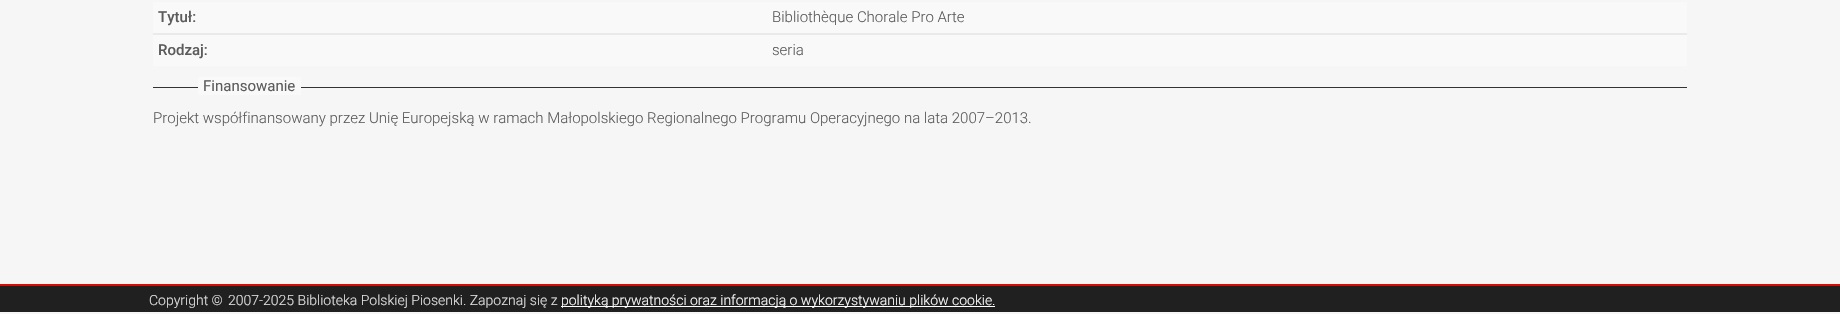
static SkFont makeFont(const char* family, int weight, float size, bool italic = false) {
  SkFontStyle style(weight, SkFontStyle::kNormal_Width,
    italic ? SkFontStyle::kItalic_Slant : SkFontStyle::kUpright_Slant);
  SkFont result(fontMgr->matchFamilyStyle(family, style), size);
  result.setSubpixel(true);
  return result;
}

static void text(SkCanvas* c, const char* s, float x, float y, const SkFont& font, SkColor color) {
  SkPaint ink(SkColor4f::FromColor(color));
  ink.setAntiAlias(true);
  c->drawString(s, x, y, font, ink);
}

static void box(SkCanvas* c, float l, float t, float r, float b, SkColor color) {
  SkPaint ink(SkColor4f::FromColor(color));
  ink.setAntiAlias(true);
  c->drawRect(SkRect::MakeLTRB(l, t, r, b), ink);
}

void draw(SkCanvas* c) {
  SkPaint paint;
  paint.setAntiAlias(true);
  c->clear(0xfff6f6f6);
  box(c, 153, 2, 1687, 33, 0xfff9f9f9);
  SkFont face1 = makeFont("Roboto", 500, 15);
  text(c, "Tytuł:", 158, 22, face1, 0xff5c5c5c);
  SkFont face2 = makeFont("Roboto", 300, 15);
  text(c, "Bibliothèque Chorale Pro Arte", 772, 22, face2, 0xff5c5c5c);
  box(c, 153, 35, 1687, 66, 0xfff9f9f9);
  box(c, 153, 33, 1687, 35, 0xffeaeaea);
  text(c, "Rodzaj:", 158, 55, face1, 0xff5c5c5c);
  text(c, "seria", 772, 55, face2, 0xff5c5c5c);
  box(c, 153, 87, 1687, 88, 0xff333333);
  box(c, 198, 77, 301, 95, 0xfff9f9f9);
  SkFont face3 = makeFont("Roboto", 400, 15);
  text(c, "Finansowanie", 203, 91, face3, 0xff5c5c5c);
  text(c, "Projekt współfinansowany przez Unię Europejską w ramach Małopolskiego Regionalnego Programu Operacyjnego na lata 2007–2013.", 153, 123, face2, 0xff5c5c5c);
  box(c, 0, 286, 1840, 312, 0xff202020);
  box(c, 0, 284, 1840, 286, 0xffd60c07);
  SkFont face4 = makeFont("Roboto", 300, 14);
  text(c, "Copyright ©", 149, 305, face4, 0xffe0e0e0);
  text(c, "2007-2025 Biblioteka Polskiej Piosenki. Zapoznaj się z", 228, 305, face4, 0xffe0e0e0);
  box(c, 561, 306, 995, 307, 0xffffffff);
  text(c, "polityką prywatności oraz informacją o wykorzystywaniu plików cookie.", 561, 305, face4, 0xffffffff);
}
